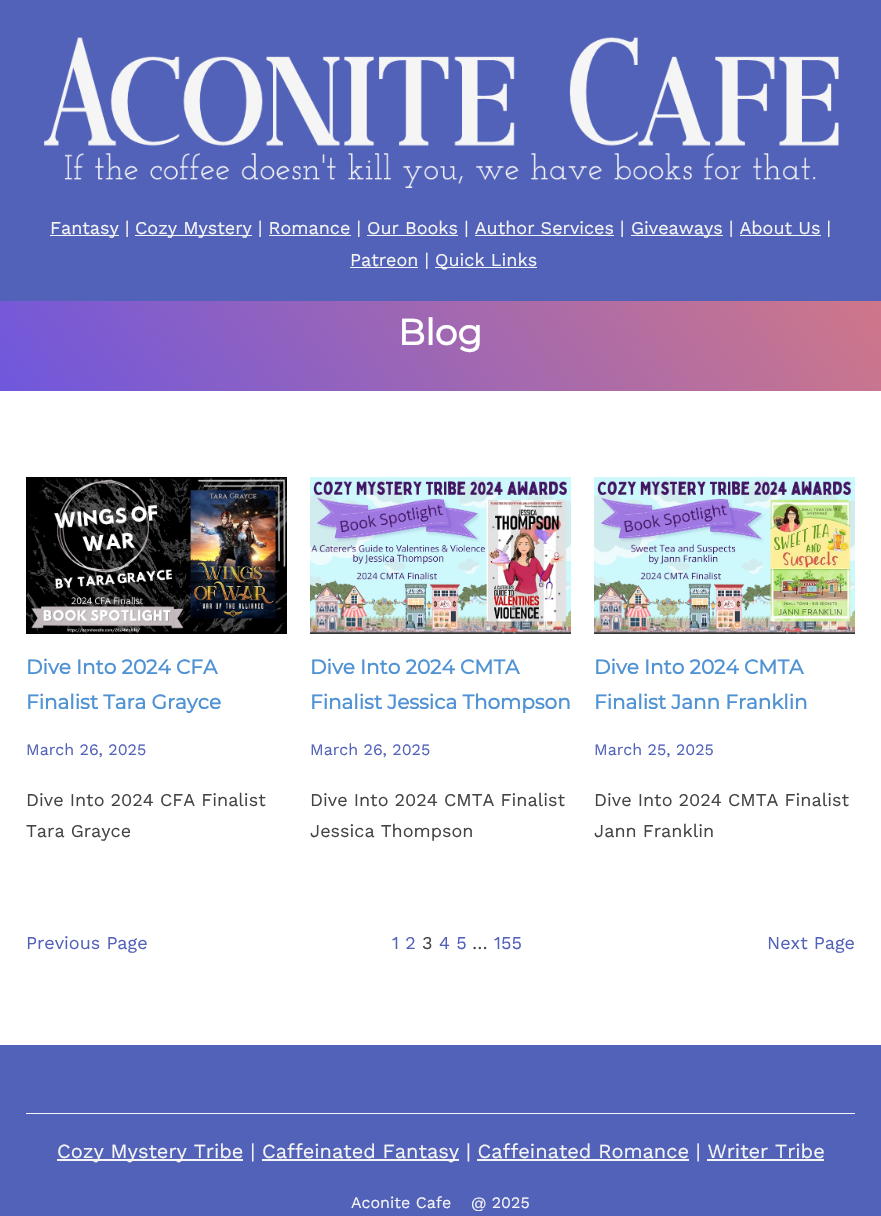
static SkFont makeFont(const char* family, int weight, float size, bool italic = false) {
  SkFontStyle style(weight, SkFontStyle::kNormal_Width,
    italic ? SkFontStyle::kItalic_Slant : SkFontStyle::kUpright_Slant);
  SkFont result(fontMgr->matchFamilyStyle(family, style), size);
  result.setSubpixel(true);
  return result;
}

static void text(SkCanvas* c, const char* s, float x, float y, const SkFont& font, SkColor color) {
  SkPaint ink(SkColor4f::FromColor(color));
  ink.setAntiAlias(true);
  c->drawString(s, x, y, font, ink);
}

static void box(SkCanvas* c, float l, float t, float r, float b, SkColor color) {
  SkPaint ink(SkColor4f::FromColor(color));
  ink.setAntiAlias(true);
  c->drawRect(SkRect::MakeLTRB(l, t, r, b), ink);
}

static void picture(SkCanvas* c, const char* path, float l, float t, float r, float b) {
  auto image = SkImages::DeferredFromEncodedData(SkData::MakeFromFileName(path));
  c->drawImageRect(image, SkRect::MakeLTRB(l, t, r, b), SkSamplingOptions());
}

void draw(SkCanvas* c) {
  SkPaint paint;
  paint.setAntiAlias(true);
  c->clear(0xff5262b9);
  picture(c, "img_01.png", 44, 37, 839, 189);
  box(c, 50, 235, 119, 236, 0xfff5f5f5);
  SkFont face1 = makeFont("Work Sans", 400, 18);
  text(c, "Fantasy |", 50, 234, face1, 0xfff5f5f5);
  box(c, 135, 235, 252, 236, 0xfff5f5f5);
  text(c, "Cozy Mystery | Romance | Our Books | Author Services |", 135, 234, face1, 0xfff5f5f5);
  box(c, 631, 235, 723, 236, 0xfff5f5f5);
  text(c, "Giveaways | About Us |", 631, 234, face1, 0xfff5f5f5);
  box(c, 269, 235, 351, 236, 0xfff5f5f5);
  box(c, 367, 235, 458, 236, 0xfff5f5f5);
  box(c, 475, 235, 614, 236, 0xfff5f5f5);
  box(c, 740, 235, 821, 236, 0xfff5f5f5);
  box(c, 350, 267, 418, 268, 0xfff5f5f5);
  text(c, "Patreon |", 350, 266, face1, 0xfff5f5f5);
  box(c, 435, 267, 537, 268, 0xfff5f5f5);
  text(c, "Quick Links", 435, 266, face1, 0xfff5f5f5);
  {
    const SkColor colors[] = {0xff6f57dd, 0xffcf7789};
    const float stops[] = {0, 1};
    const SkPoint ends[] = {{131, 571}, {750, 121}};
    paint.setShader(SkGradientShader::MakeLinear(ends, colors, stops, 2, SkTileMode::kClamp));
    paint.setAlpha(255);
  }
  c->drawRect(SkRect::MakeLTRB(0, 301, 881, 391), paint);
  SkFont face2 = makeFont("Montserrat", 700, 36);
  text(c, "Blog", 398, 345, face2, 0xffffffff);
  box(c, 0, 391, 881, 1045, 0xffffffff);
  picture(c, "img_02.png", 26, 477, 287, 634);
  SkFont face3 = makeFont("Montserrat", 700, 20);
  text(c, "Dive Into 2024 CFA", 26, 674, face3, 0xff5093d4);
  text(c, "Finalist Tara Grayce", 26, 709, face3, 0xff5093d4);
  SkFont face4 = makeFont("Work Sans", 400, 16);
  text(c, "March 26, 2025", 26, 755, face4, 0xff5262b9);
  text(c, "Dive Into 2024 CFA Finalist", 26, 806, face1, 0xff444444);
  text(c, "Tara Grayce", 26, 837, face1, 0xff444444);
  picture(c, "img_03.png", 310, 477, 571, 634);
  text(c, "Dive Into 2024 CMTA", 310, 674, face3, 0xff5093d4);
  text(c, "Finalist Jessica Thompson", 310, 709, face3, 0xff5093d4);
  text(c, "March 26, 2025", 310, 755, face4, 0xff5262b9);
  text(c, "Dive Into 2024 CMTA Finalist", 310, 806, face1, 0xff444444);
  text(c, "Jessica Thompson", 310, 837, face1, 0xff444444);
  picture(c, "img_04.png", 594, 477, 855, 634);
  text(c, "Dive Into 2024 CMTA", 594, 674, face3, 0xff5093d4);
  text(c, "Finalist Jann Franklin", 594, 709, face3, 0xff5093d4);
  text(c, "March 25, 2025", 594, 755, face4, 0xff5262b9);
  text(c, "Dive Into 2024 CMTA Finalist", 594, 806, face1, 0xff444444);
  text(c, "Jann Franklin", 594, 837, face1, 0xff444444);
  text(c, "Previous Page", 26, 949, face1, 0xff5262b9);
  text(c, "1 2", 392, 949, face1, 0xff5262b9);
  text(c, "3", 422, 949, face1, 0xff444444);
  text(c, "4 5", 439, 949, face1, 0xff5262b9);
  text(c, "…", 472, 949, face1, 0xff444444);
  text(c, "155", 494, 949, face1, 0xff5262b9);
  text(c, "Next Page", 767, 949, face1, 0xff5262b9);
  box(c, 26, 1113, 855, 1114, 0xfff5f5f5);
  box(c, 57, 1159, 243, 1161, 0xfff5f5f5);
  SkFont face5 = makeFont("Work Sans", 400, 20);
  text(c, "Cozy Mystery Tribe |", 57, 1158, face5, 0xfff5f5f5);
  box(c, 262, 1159, 459, 1161, 0xfff5f5f5);
  text(c, "Caffeinated Fantasy | Caffeinated Romance | Writer Tribe", 262, 1158, face5, 0xfff5f5f5);
  box(c, 477, 1159, 689, 1161, 0xfff5f5f5);
  box(c, 707, 1159, 824, 1161, 0xfff5f5f5);
  text(c, "Aconite Cafe", 351, 1208, face4, 0xfff5f5f5);
  text(c, "@ 2025", 471, 1208, face4, 0xfff5f5f5);
}
